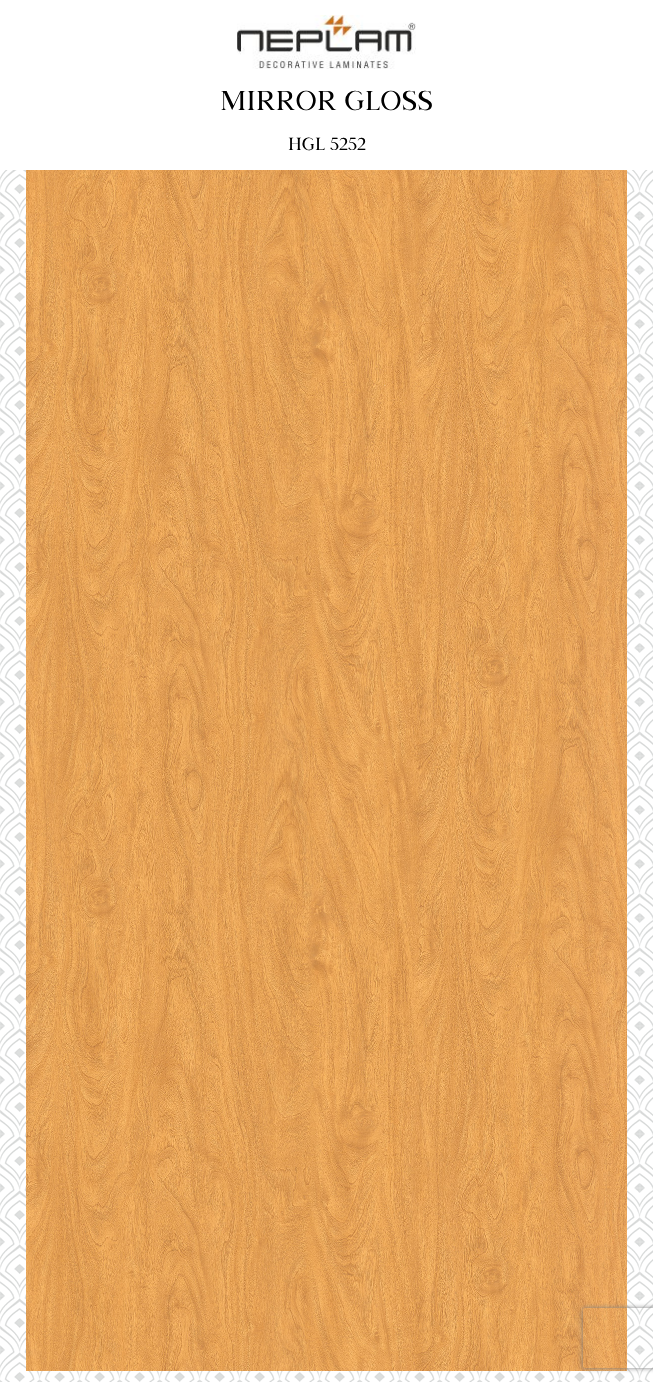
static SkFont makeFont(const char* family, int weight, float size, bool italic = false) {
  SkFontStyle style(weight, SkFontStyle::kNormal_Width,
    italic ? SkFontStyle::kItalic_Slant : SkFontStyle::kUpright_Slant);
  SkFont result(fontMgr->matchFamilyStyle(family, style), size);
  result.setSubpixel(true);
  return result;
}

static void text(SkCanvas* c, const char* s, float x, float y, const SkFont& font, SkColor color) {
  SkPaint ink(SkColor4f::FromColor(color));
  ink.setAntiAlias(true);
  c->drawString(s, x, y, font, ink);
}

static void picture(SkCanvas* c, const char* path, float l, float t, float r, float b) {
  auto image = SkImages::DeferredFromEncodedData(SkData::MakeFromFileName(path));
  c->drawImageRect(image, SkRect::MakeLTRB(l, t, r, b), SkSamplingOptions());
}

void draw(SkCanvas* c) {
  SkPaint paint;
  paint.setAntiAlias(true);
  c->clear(0xffffffff);
  picture(c, "img_01.png", 0, 170, 653, 1382);
  picture(c, "img_02.png", 237, 15, 416, 69);
  SkFont face1 = makeFont("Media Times", 400, 28);
  text(c, "MIRROR GLOSS", 220, 110, face1, 0xff000000);
  SkFont face2 = makeFont("Media Times", 400, 18);
  text(c, "HGL 5252", 288, 150, face2, 0xff000000);
  picture(c, "img_03.png", 26, 170, 627, 1371);
  c->save();
  c->clipPath(SkPathBuilder(SkPathFillType::kEvenOdd).moveTo(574, 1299).lineTo(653, 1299).lineTo(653, 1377).lineTo(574, 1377).close().moveTo(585, 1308).lineTo(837, 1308).cubicTo(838, 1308, 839, 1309, 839, 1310).lineTo(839, 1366).cubicTo(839, 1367, 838, 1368, 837, 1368).lineTo(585, 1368).cubicTo(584, 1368, 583, 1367, 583, 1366).lineTo(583, 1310).cubicTo(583, 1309, 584, 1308, 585, 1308).close().detach(), true);
  paint.setColor(0xff808080);
  paint.setMaskFilter(SkMaskFilter::MakeBlur(kNormal_SkBlurStyle, 2.5f));
  c->drawRoundRect(SkRect::MakeLTRB(583, 1308, 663, 1368), 2, 2, paint);
  paint.setMaskFilter(nullptr);
  c->restore();
}
